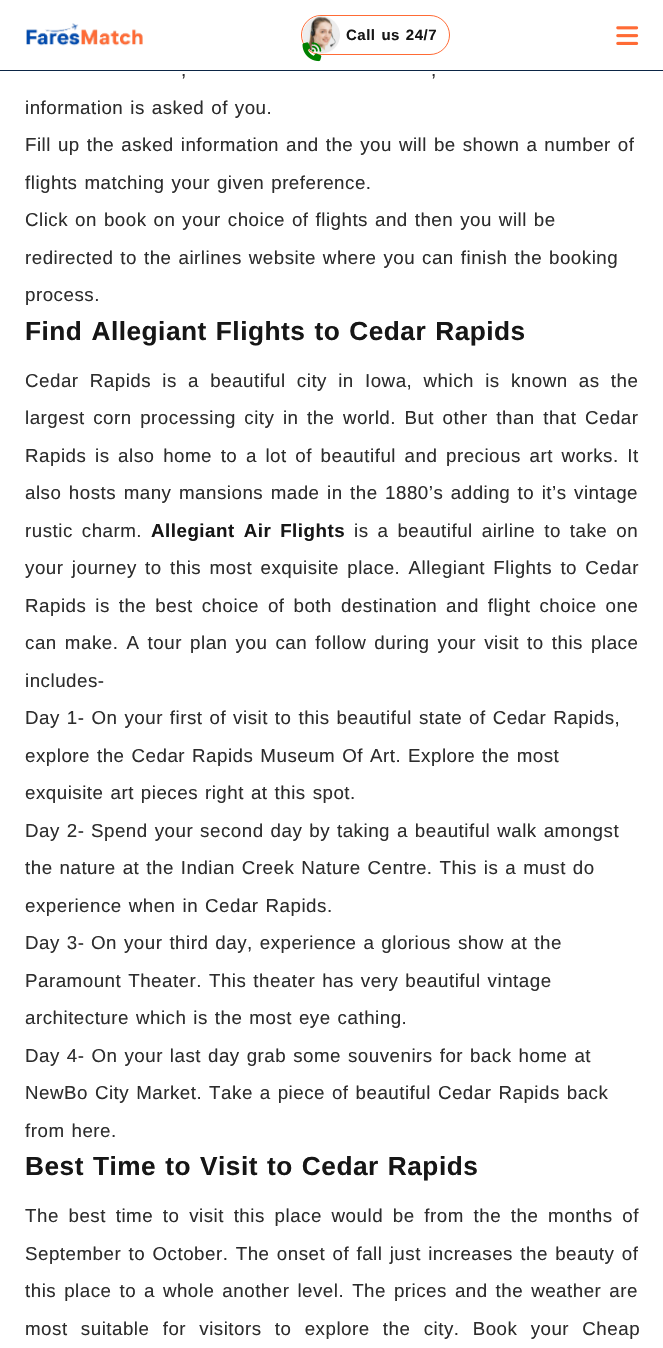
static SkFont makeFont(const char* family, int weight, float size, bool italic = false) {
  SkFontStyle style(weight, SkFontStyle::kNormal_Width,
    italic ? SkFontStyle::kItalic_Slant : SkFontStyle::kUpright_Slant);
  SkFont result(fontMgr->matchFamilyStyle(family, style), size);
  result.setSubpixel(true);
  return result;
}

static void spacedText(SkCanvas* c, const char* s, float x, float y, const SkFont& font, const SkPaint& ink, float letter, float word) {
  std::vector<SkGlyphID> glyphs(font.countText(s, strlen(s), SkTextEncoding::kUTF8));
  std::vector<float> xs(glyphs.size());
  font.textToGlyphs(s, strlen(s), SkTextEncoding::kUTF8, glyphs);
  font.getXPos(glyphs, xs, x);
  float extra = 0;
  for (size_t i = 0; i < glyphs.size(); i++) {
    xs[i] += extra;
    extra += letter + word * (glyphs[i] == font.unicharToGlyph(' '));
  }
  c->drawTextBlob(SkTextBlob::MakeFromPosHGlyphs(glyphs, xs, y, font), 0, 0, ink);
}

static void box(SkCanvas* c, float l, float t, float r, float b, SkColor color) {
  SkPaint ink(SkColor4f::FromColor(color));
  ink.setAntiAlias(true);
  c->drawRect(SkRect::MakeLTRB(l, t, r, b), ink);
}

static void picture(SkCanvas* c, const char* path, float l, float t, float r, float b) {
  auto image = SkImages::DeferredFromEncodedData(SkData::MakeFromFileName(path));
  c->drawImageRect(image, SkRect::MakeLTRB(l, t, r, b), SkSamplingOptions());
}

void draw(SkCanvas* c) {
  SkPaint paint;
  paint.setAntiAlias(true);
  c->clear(0xffffffff);
  box(c, 0, 70, 663, 71, 0xff0b2545);
  picture(c, "img_01.png", 26, 23, 143, 46);
  paint.setStyle(SkPaint::kStroke_Style);
  paint.setStrokeWidth(1);
  paint.setColor(0xffff6b35);
  c->drawRoundRect(SkRect::MakeLTRB(301.5f, 15.5f, 449.5f, 54.5f), 19.5f, 19.5f, paint);
  picture(c, "img_02.png", 302, 16, 340, 55);
  SkFont face1 = makeFont("Liberation Sans", 700, 15);
  paint.setStyle(SkPaint::kFill_Style);
  paint.setColor(0xff161616);
  spacedText(c, "Call us 24/7", 346, 40, face1, paint, 0.5f, 1.25f);
  picture(c, "img_03.png", 302, 42, 322, 62);
  picture(c, "img_04.png", 616, 26, 639, 45);
  SkFont face2 = makeFont("Liberation Sans", 400, 18.75f);
  paint.setColor(0xff2d2d2d);
  spacedText(c, ",", 181, 76, face2, paint, 0.5f, 1.25f);
  spacedText(c, ",", 431, 76, face2, paint, 0.5f, 1.25f);
  spacedText(c, "information is asked of you.", 25, 114, face2, paint, 0.5f, 1.25f);
  spacedText(c, "Fill up the asked information and the you will be shown a number of", 25, 151, face2, paint, 0.5f, 1.25f);
  spacedText(c, "flights matching your given preference.", 25, 189, face2, paint, 0.5f, 1.25f);
  spacedText(c, "Click on book on your choice of flights and then you will be", 25, 226, face2, paint, 0.5f, 1.25f);
  spacedText(c, "redirected to the airlines website where you can finish the booking", 25, 264, face2, paint, 0.5f, 1.25f);
  spacedText(c, "process.", 25, 301, face2, paint, 0.5f, 0);
  SkFont face3 = makeFont("Liberation Sans", 700, 26.25f);
  paint.setColor(0xff161616);
  spacedText(c, "Find Allegiant Flights to Cedar Rapids", 25, 340, face3, paint, 0.5f, 1.25f);
  paint.setColor(0xff2d2d2d);
  spacedText(c, "Cedar Rapids is a beautiful city in Iowa, which is known as the", 25, 387, face2, paint, 0.5f, 5.5f);
  spacedText(c, "largest corn processing city in the world. But other than that Cedar", 25, 424, face2, paint, 0.5f, 2.75f);
  spacedText(c, "Rapids is also home to a lot of beautiful and precious art works. It", 25, 462, face2, paint, 0.5f, 2.9f);
  spacedText(c, "also hosts many mansions made in the 1880’s adding to it’s vintage", 25, 499, face2, paint, 0.5f, 1.75f);
  spacedText(c, "rustic charm.", 25, 537, face2, paint, 0.5f, 3.25f);
  SkFont face4 = makeFont("Liberation Sans", 700, 18.75f);
  paint.setColor(0xff161616);
  spacedText(c, "Allegiant Air Flights", 151, 537, face4, paint, 0.5f, 3.25f);
  paint.setColor(0xff2d2d2d);
  spacedText(c, "is a beautiful airline to take on", 354, 537, face2, paint, 0.5f, 3.25f);
  spacedText(c, "your journey to this most exquisite place. Allegiant Flights to Cedar", 25, 574, face2, paint, 0.5f, 2.6f);
  spacedText(c, "Rapids is the best choice of both destination and flight choice one", 25, 612, face2, paint, 0.5f, 3.25f);
  spacedText(c, "can make. A tour plan you can follow during your visit to this place", 25, 649, face2, paint, 0.5f, 2.4f);
  spacedText(c, "includes-", 25, 687, face2, paint, 0.5f, 0);
  spacedText(c, "Day 1- On your first of visit to this beautiful state of Cedar Rapids,", 25, 724, face2, paint, 0.5f, 1.25f);
  spacedText(c, "explore the Cedar Rapids Museum Of Art. Explore the most", 25, 762, face2, paint, 0.5f, 1.25f);
  spacedText(c, "exquisite art pieces right at this spot.", 25, 799, face2, paint, 0.5f, 1.25f);
  spacedText(c, "Day 2-", 25, 837, face2, paint, 0.5f, 1.25f);
  spacedText(c, "Spend your second day by taking a beautiful walk amongst", 91, 837, face2, paint, 0.5f, 1.25f);
  spacedText(c, "the nature at the Indian Creek Nature Centre. This is a must do", 25, 874, face2, paint, 0.5f, 1.25f);
  spacedText(c, "experience when in Cedar Rapids.", 25, 912, face2, paint, 0.5f, 1.25f);
  spacedText(c, "Day 3-", 25, 949, face2, paint, 0.5f, 1.25f);
  spacedText(c, "On your third day, experience a glorious show at the", 91, 949, face2, paint, 0.5f, 1.25f);
  spacedText(c, "Paramount Theater. This theater has very beautiful vintage", 25, 987, face2, paint, 0.5f, 1.25f);
  spacedText(c, "architecture which is the most eye cathing.", 25, 1024, face2, paint, 0.5f, 1.25f);
  spacedText(c, "Day 4- On your last day grab some souvenirs for back home at", 25, 1062, face2, paint, 0.5f, 1.25f);
  spacedText(c, "NewBo City Market. Take a piece of beautiful Cedar Rapids back", 25, 1099, face2, paint, 0.5f, 1.25f);
  spacedText(c, "from here.", 25, 1137, face2, paint, 0.5f, 1.25f);
  paint.setColor(0xff161616);
  spacedText(c, "Best Time to Visit to Cedar Rapids", 25, 1175, face3, paint, 0.5f, 1.25f);
  paint.setColor(0xff2d2d2d);
  spacedText(c, "The best time to visit this place would be from the the months of", 25, 1222, face2, paint, 0.5f, 4);
  spacedText(c, "September to October. The onset of fall just increases the beauty of", 25, 1260, face2, paint, 0.5f, 1.6f);
  spacedText(c, "this place to a whole another level. The prices and the weather are", 25, 1297, face2, paint, 0.5f, 2.25f);
  spacedText(c, "most suitable for visitors to explore the city. Book your Cheap", 25, 1335, face2, paint, 0.5f, 7.5f);
}
